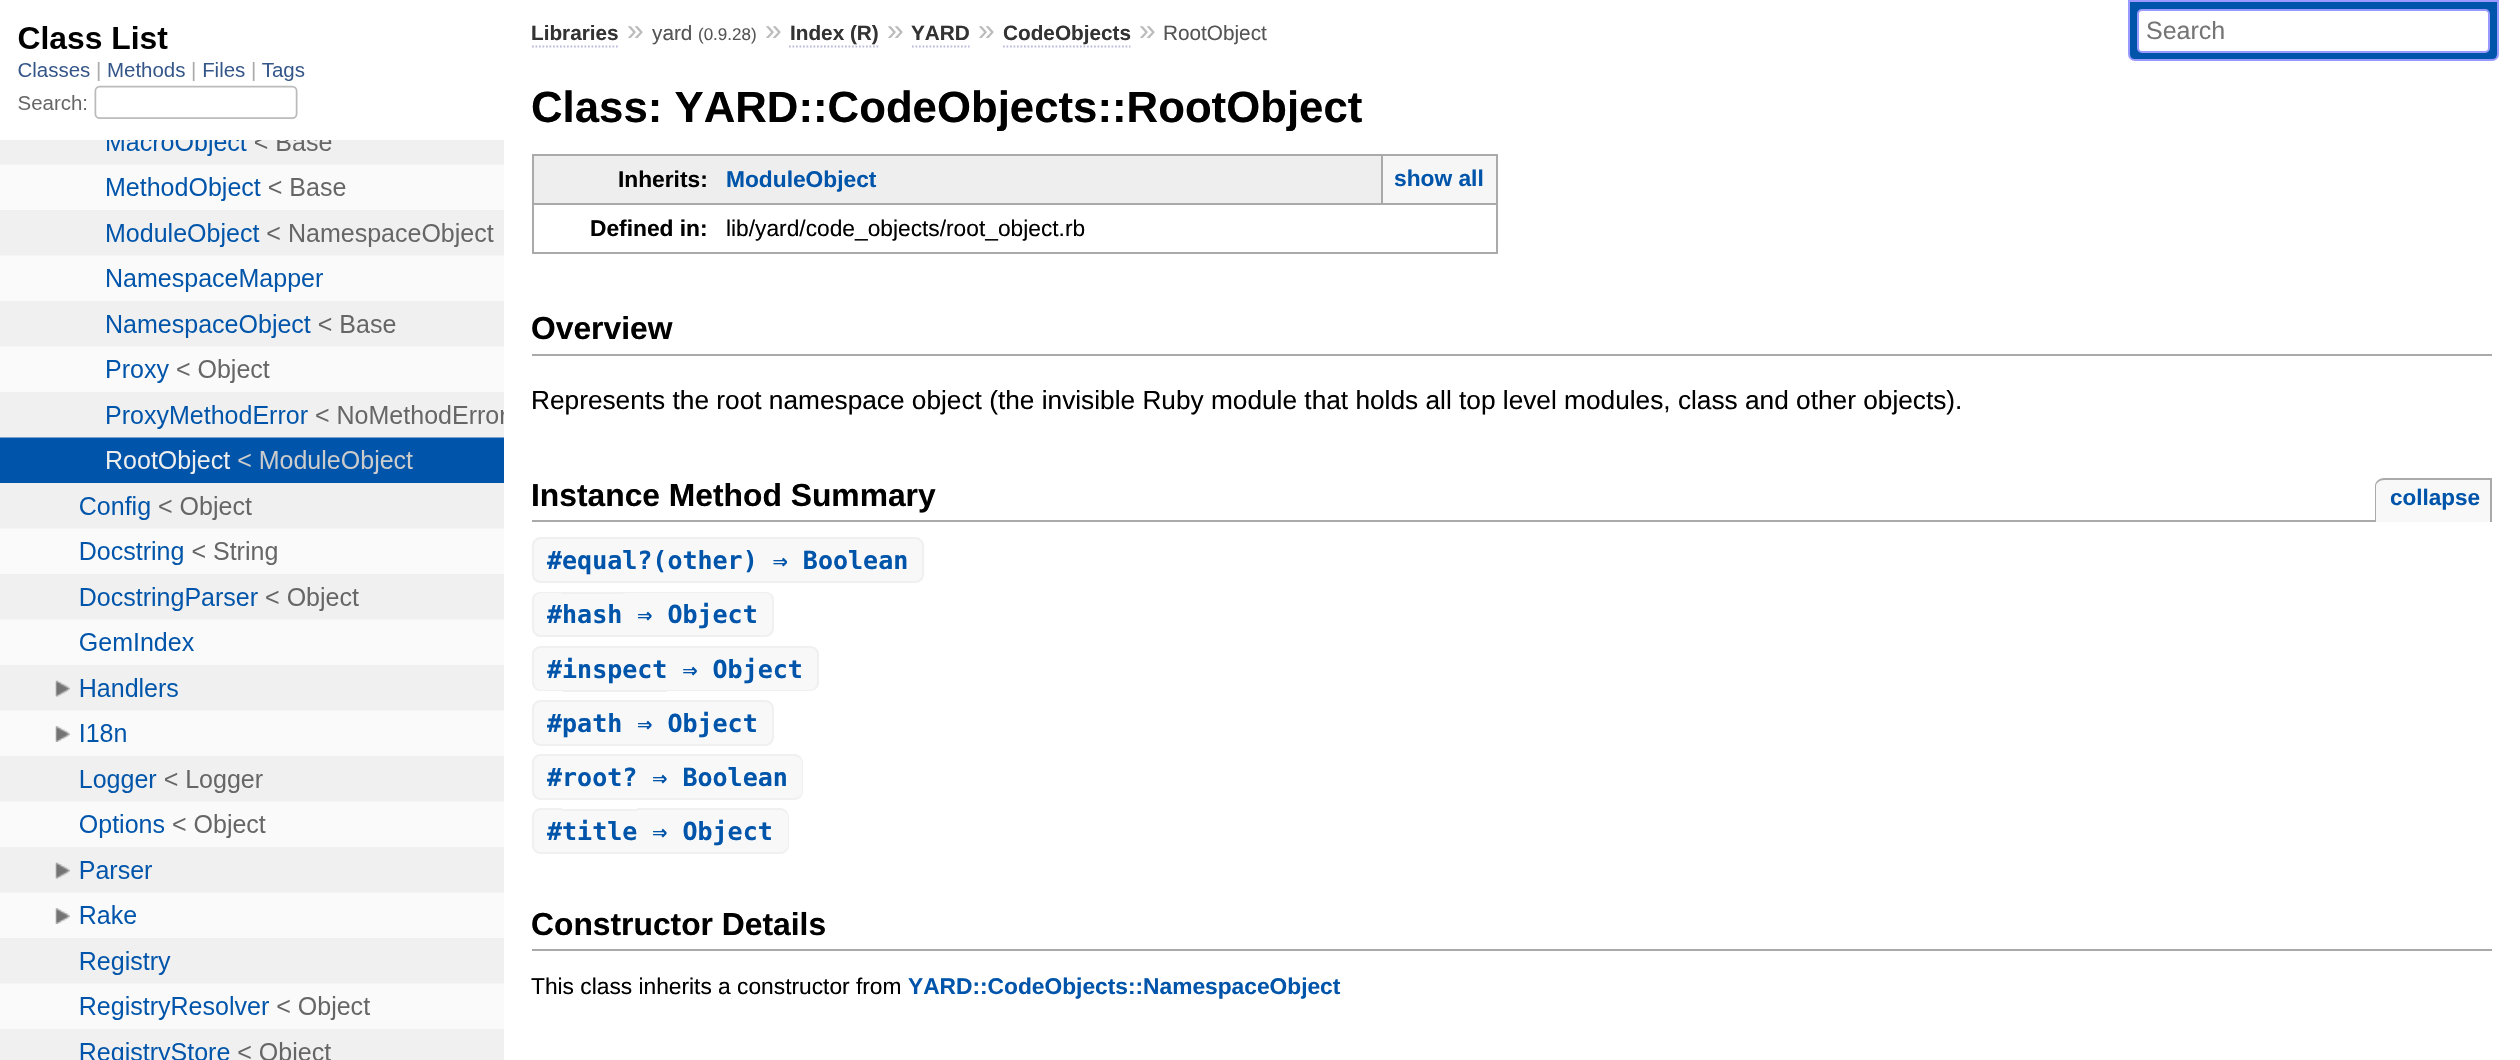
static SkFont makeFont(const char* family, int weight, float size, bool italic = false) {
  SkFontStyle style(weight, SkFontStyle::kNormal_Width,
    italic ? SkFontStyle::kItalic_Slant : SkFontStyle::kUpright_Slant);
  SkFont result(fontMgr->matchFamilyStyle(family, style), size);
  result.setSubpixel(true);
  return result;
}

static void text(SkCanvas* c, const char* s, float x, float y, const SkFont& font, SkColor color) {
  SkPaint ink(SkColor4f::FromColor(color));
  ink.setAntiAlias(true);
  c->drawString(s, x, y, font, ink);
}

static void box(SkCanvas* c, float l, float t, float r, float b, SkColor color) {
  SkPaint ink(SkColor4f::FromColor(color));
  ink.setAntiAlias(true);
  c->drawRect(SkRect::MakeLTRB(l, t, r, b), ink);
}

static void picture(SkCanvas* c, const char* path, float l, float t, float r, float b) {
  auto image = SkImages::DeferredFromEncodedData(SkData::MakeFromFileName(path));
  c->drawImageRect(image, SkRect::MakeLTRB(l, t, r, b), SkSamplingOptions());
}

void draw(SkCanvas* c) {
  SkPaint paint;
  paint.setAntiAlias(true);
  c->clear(0xffffffff);
  picture(c, "img_01.png", 0, 26, 504, 1060);
  SkFont face1 = makeFont("Liberation Sans", 700, 20.75f);
  text(c, "Libraries", 531, 40, face1, 0xff333333);
  paint.setStyle(SkPaint::kStroke_Style);
  paint.setStrokeWidth(1.8f);
  paint.setColor(0xffbbbbdd);
  paint.setPathEffect(SkDashPathEffect::Make({{1.75f, 1.75f}}, 0));
  c->drawPath(SkPathBuilder().moveTo(532, 46.5f).lineTo(619.5f, 46.5f).detach(), paint);
  paint.setPathEffect(nullptr);
  SkFont face2 = makeFont("Liberation Sans", 400, 30);
  text(c, "»", 627, 40, face2, 0xffbbbbbb);
  SkFont face3 = makeFont("Liberation Sans", 400, 20.75f);
  text(c, "yard", 652, 40, face3, 0xff555555);
  SkFont face4 = makeFont("Liberation Sans", 400, 17);
  text(c, "(0.9.28)", 698, 40, face4, 0xff555555);
  text(c, "»", 765, 40, face2, 0xffbbbbbb);
  text(c, "Index (R)", 790, 40, face1, 0xff333333);
  paint.setPathEffect(SkDashPathEffect::Make({{1.75f, 1.75f}}, 0));
  c->drawPath(SkPathBuilder().moveTo(789, 46.5f).lineTo(878.5f, 46.5f).detach(), paint);
  paint.setPathEffect(nullptr);
  text(c, "»", 887, 40, face2, 0xffbbbbbb);
  text(c, "YARD", 911, 40, face1, 0xff333333);
  paint.setPathEffect(SkDashPathEffect::Make({{1.75f, 1.75f}}, 0));
  c->drawPath(SkPathBuilder().moveTo(912, 46.5f).lineTo(969.5f, 46.5f).detach(), paint);
  paint.setPathEffect(nullptr);
  text(c, "»", 978, 40, face2, 0xffbbbbbb);
  text(c, "CodeObjects", 1003, 40, face1, 0xff333333);
  paint.setPathEffect(SkDashPathEffect::Make({{1.75f, 1.75f}}, 0));
  c->drawPath(SkPathBuilder().moveTo(1003, 46.5f).lineTo(1130.5f, 46.5f).detach(), paint);
  paint.setPathEffect(nullptr);
  text(c, "»", 1139, 40, face2, 0xffbbbbbb);
  text(c, "RootObject", 1163, 40, face3, 0xff555555);
  paint.setStyle(SkPaint::kFill_Style);
  paint.setColor(0xff0055aa);
  c->drawPath(SkPathBuilder().moveTo(2129, 1).lineTo(2498, 1).lineTo(2498, 54).cubicTo(2498, 57.5f, 2495.5f, 60, 2492, 60).lineTo(2135, 60).cubicTo(2131.5f, 60, 2129, 57.5f, 2129, 54).close().detach(), paint);
  paint.setStyle(SkPaint::kStroke_Style);
  paint.setStrokeWidth(2);
  paint.setColor(0xff9999ff);
  c->drawPath(SkPathBuilder().moveTo(2129, 1).lineTo(2498, 1).lineTo(2498, 54).cubicTo(2498, 57.5f, 2495.5f, 60, 2492, 60).lineTo(2135, 60).cubicTo(2131.5f, 60, 2129, 57.5f, 2129, 54).close().detach(), paint);
  paint.setStyle(SkPaint::kFill_Style);
  paint.setColor(0xffffffff);
  c->drawRoundRect(SkRect::MakeLTRB(2138, 10, 2489, 52), 4, 4, paint);
  paint.setStyle(SkPaint::kStroke_Style);
  paint.setColor(0xff9999ff);
  c->drawRoundRect(SkRect::MakeLTRB(2138, 10, 2489, 52), 4, 4, paint);
  SkFont face5 = makeFont("Liberation Sans", 400, 25);
  text(c, "Search", 2146, 39, face5, 0xff757575);
  SkFont face6 = makeFont("Liberation Sans", 700, 43.75f);
  text(c, "Class: YARD::CodeObjects::RootObject", 531, 122, face6, 0xff000000);
  box(c, 534, 156, 1381, 203, 0xffeeeeee);
  box(c, 532, 154, 1498, 156, 0xffaaaaaa);
  box(c, 532, 154, 534, 203, 0xffaaaaaa);
  SkFont face7 = makeFont("Liberation Sans", 700, 22.75f);
  text(c, "Inherits:", 618, 187, face7, 0xff000000);
  box(c, 532, 203, 1498, 205, 0xffaaaaaa);
  box(c, 1496, 154, 1498, 254, 0xffaaaaaa);
  text(c, "ModuleObject", 726, 187, face7, 0xff0055aa);
  box(c, 1383, 156, 1496, 203, 0xfff6f6f6);
  box(c, 1381, 156, 1383, 203, 0xffaaaaaa);
  text(c, "show all", 1394, 186, face7, 0xff0055aa);
  box(c, 532, 252, 726, 254, 0xffaaaaaa);
  box(c, 532, 203, 534, 254, 0xffaaaaaa);
  text(c, "Defined in:", 590, 236, face7, 0xff000000);
  box(c, 726, 252, 1498, 254, 0xffaaaaaa);
  SkFont face8 = makeFont("Liberation Sans", 400, 22.75f);
  text(c, "lib/yard/code_objects/root_object.rb", 726, 236, face8, 0xff000000);
  box(c, 532, 354, 2492, 356, 0xffaaaaaa);
  SkFont face9 = makeFont("Liberation Sans", 700, 31.8f);
  text(c, "Overview", 531, 339, face9, 0xff000000);
  SkFont face10 = makeFont("Liberation Sans", 400, 26.25f);
  text(c, "Represents the root namespace object (the invisible Ruby module that holds all top level modules, class and other objects).", 531, 409, face10, 0xff000000);
  box(c, 532, 520, 2375, 522, 0xffaaaaaa);
  text(c, "Instance Method Summary", 531, 506, face9, 0xff000000);
  paint.setStyle(SkPaint::kFill_Style);
  paint.setColor(0xfff8f8f8);
  c->drawPath(SkPathBuilder().moveTo(2384, 478).lineTo(2492, 478).lineTo(2492, 522).lineTo(2375, 522).lineTo(2375, 487).cubicTo(2375, 482, 2379, 478, 2384, 478).close().detach(), paint);
  paint.setColor(0xffaaaaaa);
  c->drawPath(SkPathBuilder(SkPathFillType::kEvenOdd).moveTo(2384, 478).lineTo(2492, 478).lineTo(2492, 522).lineTo(2375, 522).lineTo(2375, 486).cubicTo(2375, 482, 2379, 478, 2384, 478).close().moveTo(2384, 480).lineTo(2490, 480).lineTo(2490, 522).lineTo(2376, 522).lineTo(2376, 486).cubicTo(2376, 483, 2380, 480, 2384, 480).close().detach(), paint);
  SkFont face11 = makeFont("Liberation Sans", 700, 22.5f);
  text(c, "collapse", 2390, 505, face11, 0xff0055aa);
  paint.setColor(0xfff8f8f8);
  c->drawPath(SkPathBuilder().moveTo(541, 537).lineTo(562, 537).lineTo(562, 583).lineTo(541, 583).cubicTo(536, 583, 532, 579, 532, 574).lineTo(532, 546).cubicTo(532, 541, 536, 537, 541, 537).close().detach(), paint);
  paint.setColor(0xfff0f0f0);
  c->drawPath(SkPathBuilder(SkPathFillType::kEvenOdd).moveTo(541, 537).lineTo(562, 537).lineTo(562, 583).lineTo(541, 583).cubicTo(536, 583, 532, 579, 532, 574).lineTo(532, 546).cubicTo(532, 541, 536, 537, 541, 537).close().moveTo(541, 539).lineTo(562, 539).lineTo(562, 581).lineTo(541, 581).cubicTo(537, 581, 534, 578, 534, 574).lineTo(534, 546).cubicTo(534, 542, 537, 539, 541, 539).close().detach(), paint);
  box(c, 562, 539, 653, 581, 0xfff8f8f8);
  paint.setColor(0xfff8f8f8);
  c->drawPath(SkPathBuilder().moveTo(653, 537).lineTo(915, 537).cubicTo(920, 537, 924, 541, 924, 546).lineTo(924, 574).cubicTo(924, 579, 920, 583, 915, 583).lineTo(653, 583).close().detach(), paint);
  paint.setColor(0xfff0f0f0);
  c->drawPath(SkPathBuilder(SkPathFillType::kEvenOdd).moveTo(653, 537).lineTo(915, 537).cubicTo(920, 537, 924, 541, 924, 546).lineTo(924, 574).cubicTo(924, 579, 920, 583, 915, 583).lineTo(653, 583).close().moveTo(653, 539).lineTo(915, 539).cubicTo(919, 539, 922, 542, 922, 546).lineTo(922, 574).cubicTo(922, 578, 919, 581, 915, 581).lineTo(653, 581).close().detach(), paint);
  SkFont face12 = makeFont("DejaVu Sans Mono", 700, 25);
  text(c, "#equal?(other) ⇒ Boolean", 547, 569, face12, 0xff0055aa);
  box(c, 562, 537, 653, 539, 0xfff0f0f0);
  box(c, 562, 581, 653, 583, 0xfff0f0f0);
  paint.setColor(0xfff8f8f8);
  c->drawPath(SkPathBuilder().moveTo(541, 592).lineTo(562, 592).lineTo(562, 637).lineTo(541, 637).cubicTo(536, 637, 532, 633, 532, 628).lineTo(532, 601).cubicTo(532, 596, 536, 592, 541, 592).close().detach(), paint);
  paint.setColor(0xfff0f0f0);
  c->drawPath(SkPathBuilder(SkPathFillType::kEvenOdd).moveTo(541, 592).lineTo(562, 592).lineTo(562, 637).lineTo(541, 637).cubicTo(536, 637, 532, 633, 532, 628).lineTo(532, 600).cubicTo(532, 595, 536, 592, 541, 592).close().moveTo(541, 593).lineTo(562, 593).lineTo(562, 635).lineTo(541, 635).cubicTo(537, 635, 534, 632, 534, 628).lineTo(534, 600).cubicTo(534, 596, 537, 593, 541, 593).close().detach(), paint);
  box(c, 562, 594, 623, 635, 0xfff8f8f8);
  paint.setColor(0xfff8f8f8);
  c->drawPath(SkPathBuilder().moveTo(623, 592).lineTo(765, 592).cubicTo(770, 592, 774, 596, 774, 601).lineTo(774, 628).cubicTo(774, 633, 770, 637, 765, 637).lineTo(623, 637).close().detach(), paint);
  paint.setColor(0xfff0f0f0);
  c->drawPath(SkPathBuilder(SkPathFillType::kEvenOdd).moveTo(623, 592).lineTo(765, 592).cubicTo(770, 592, 774, 595, 774, 600).lineTo(774, 628).cubicTo(774, 633, 770, 637, 765, 637).lineTo(623, 637).close().moveTo(623, 593).lineTo(765, 593).cubicTo(769, 593, 772, 596, 772, 600).lineTo(772, 628).cubicTo(772, 632, 769, 635, 765, 635).lineTo(623, 635).close().detach(), paint);
  text(c, "#hash ⇒ Object", 547, 623, face12, 0xff0055aa);
  box(c, 562, 592, 623, 594, 0xfff0f0f0);
  box(c, 562, 635, 623, 637, 0xfff0f0f0);
  paint.setColor(0xfff8f8f8);
  c->drawPath(SkPathBuilder().moveTo(541, 646).lineTo(562, 646).lineTo(562, 691).lineTo(541, 691).cubicTo(536, 691, 532, 687, 532, 682).lineTo(532, 655).cubicTo(532, 650, 536, 646, 541, 646).close().detach(), paint);
  paint.setColor(0xfff0f0f0);
  c->drawPath(SkPathBuilder(SkPathFillType::kEvenOdd).moveTo(541, 646).lineTo(562, 646).lineTo(562, 691).lineTo(541, 691).cubicTo(536, 691, 532, 687, 532, 682).lineTo(532, 654).cubicTo(532, 650, 536, 646, 541, 646).close().moveTo(541, 648).lineTo(562, 648).lineTo(562, 690).lineTo(541, 690).cubicTo(537, 690, 534, 686, 534, 682).lineTo(534, 654).cubicTo(534, 651, 537, 648, 541, 648).close().detach(), paint);
  box(c, 562, 648, 667, 690, 0xfff8f8f8);
  paint.setColor(0xfff8f8f8);
  c->drawPath(SkPathBuilder().moveTo(667, 646).lineTo(810, 646).cubicTo(815, 646, 819, 650, 819, 655).lineTo(819, 682).cubicTo(819, 687, 815, 691, 810, 691).lineTo(667, 691).close().detach(), paint);
  paint.setColor(0xfff0f0f0);
  c->drawPath(SkPathBuilder(SkPathFillType::kEvenOdd).moveTo(667, 646).lineTo(810, 646).cubicTo(815, 646, 819, 650, 819, 654).lineTo(819, 682).cubicTo(819, 687, 815, 691, 810, 691).lineTo(667, 691).close().moveTo(667, 648).lineTo(810, 648).cubicTo(814, 648, 817, 651, 817, 654).lineTo(817, 682).cubicTo(817, 686, 814, 690, 810, 690).lineTo(667, 690).close().detach(), paint);
  text(c, "#inspect ⇒ Object", 547, 678, face12, 0xff0055aa);
  box(c, 562, 646, 667, 648, 0xfff0f0f0);
  box(c, 562, 690, 667, 692, 0xfff0f0f0);
  paint.setColor(0xfff8f8f8);
  c->drawPath(SkPathBuilder().moveTo(541, 700).lineTo(562, 700).lineTo(562, 746).lineTo(541, 746).cubicTo(536, 746, 532, 742, 532, 737).lineTo(532, 709).cubicTo(532, 704, 536, 700, 541, 700).close().detach(), paint);
  paint.setColor(0xfff0f0f0);
  c->drawPath(SkPathBuilder(SkPathFillType::kEvenOdd).moveTo(541, 700).lineTo(562, 700).lineTo(562, 746).lineTo(541, 746).cubicTo(536, 746, 532, 742, 532, 737).lineTo(532, 709).cubicTo(532, 704, 536, 700, 541, 700).close().moveTo(541, 702).lineTo(562, 702).lineTo(562, 744).lineTo(541, 744).cubicTo(537, 744, 534, 741, 534, 737).lineTo(534, 709).cubicTo(534, 705, 537, 702, 541, 702).close().detach(), paint);
  box(c, 562, 702, 623, 744, 0xfff8f8f8);
  paint.setColor(0xfff8f8f8);
  c->drawPath(SkPathBuilder().moveTo(623, 700).lineTo(765, 700).cubicTo(770, 700, 774, 704, 774, 709).lineTo(774, 737).cubicTo(774, 742, 770, 746, 765, 746).lineTo(623, 746).close().detach(), paint);
  paint.setColor(0xfff0f0f0);
  c->drawPath(SkPathBuilder(SkPathFillType::kEvenOdd).moveTo(623, 700).lineTo(765, 700).cubicTo(770, 700, 774, 704, 774, 709).lineTo(774, 737).cubicTo(774, 742, 770, 746, 765, 746).lineTo(623, 746).close().moveTo(623, 702).lineTo(765, 702).cubicTo(769, 702, 772, 705, 772, 709).lineTo(772, 737).cubicTo(772, 741, 769, 744, 765, 744).lineTo(623, 744).close().detach(), paint);
  text(c, "#path ⇒ Object", 547, 732, face12, 0xff0055aa);
  box(c, 562, 700, 623, 702, 0xfff0f0f0);
  box(c, 562, 744, 623, 746, 0xfff0f0f0);
  paint.setColor(0xfff8f8f8);
  c->drawPath(SkPathBuilder().moveTo(541, 754).lineTo(562, 754).lineTo(562, 800).lineTo(541, 800).cubicTo(536, 800, 532, 796, 532, 791).lineTo(532, 763).cubicTo(532, 758, 536, 754, 541, 754).close().detach(), paint);
  paint.setColor(0xfff0f0f0);
  c->drawPath(SkPathBuilder(SkPathFillType::kEvenOdd).moveTo(541, 754).lineTo(562, 754).lineTo(562, 800).lineTo(541, 800).cubicTo(536, 800, 532, 796, 532, 791).lineTo(532, 763).cubicTo(532, 758, 536, 754, 541, 754).close().moveTo(541, 756).lineTo(562, 756).lineTo(562, 798).lineTo(541, 798).cubicTo(537, 798, 534, 795, 534, 791).lineTo(534, 763).cubicTo(534, 759, 537, 756, 541, 756).close().detach(), paint);
  box(c, 562, 756, 637, 798, 0xfff8f8f8);
  paint.setColor(0xfff8f8f8);
  c->drawPath(SkPathBuilder().moveTo(637, 754).lineTo(794, 754).cubicTo(799, 754, 803, 758, 803, 763).lineTo(803, 791).cubicTo(803, 796, 799, 800, 794, 800).lineTo(637, 800).close().detach(), paint);
  paint.setColor(0xfff0f0f0);
  c->drawPath(SkPathBuilder(SkPathFillType::kEvenOdd).moveTo(637, 754).lineTo(794, 754).cubicTo(799, 754, 803, 758, 803, 763).lineTo(803, 791).cubicTo(803, 796, 799, 800, 794, 800).lineTo(637, 800).close().moveTo(637, 756).lineTo(794, 756).cubicTo(798, 756, 802, 759, 802, 763).lineTo(802, 791).cubicTo(802, 795, 798, 798, 794, 798).lineTo(637, 798).close().detach(), paint);
  text(c, "#root? ⇒ Boolean", 547, 786, face12, 0xff0055aa);
  box(c, 562, 754, 637, 756, 0xfff0f0f0);
  box(c, 562, 798, 637, 800, 0xfff0f0f0);
  paint.setColor(0xfff8f8f8);
  c->drawPath(SkPathBuilder().moveTo(541, 809).lineTo(562, 809).lineTo(562, 854).lineTo(541, 854).cubicTo(536, 854, 532, 850, 532, 845).lineTo(532, 818).cubicTo(532, 813, 536, 809, 541, 809).close().detach(), paint);
  paint.setColor(0xfff0f0f0);
  c->drawPath(SkPathBuilder(SkPathFillType::kEvenOdd).moveTo(541, 808).lineTo(562, 808).lineTo(562, 854).lineTo(541, 854).cubicTo(536, 854, 532, 850, 532, 845).lineTo(532, 817).cubicTo(532, 812, 536, 808, 541, 808).close().moveTo(541, 810).lineTo(562, 810).lineTo(562, 852).lineTo(541, 852).cubicTo(537, 852, 534, 849, 534, 845).lineTo(534, 817).cubicTo(534, 813, 537, 810, 541, 810).close().detach(), paint);
  box(c, 562, 811, 637, 852, 0xfff8f8f8);
  paint.setColor(0xfff8f8f8);
  c->drawPath(SkPathBuilder().moveTo(637, 809).lineTo(780, 809).cubicTo(785, 809, 789, 813, 789, 818).lineTo(789, 845).cubicTo(789, 850, 785, 854, 780, 854).lineTo(637, 854).close().detach(), paint);
  paint.setColor(0xfff0f0f0);
  c->drawPath(SkPathBuilder(SkPathFillType::kEvenOdd).moveTo(637, 808).lineTo(780, 808).cubicTo(785, 808, 789, 812, 789, 817).lineTo(789, 845).cubicTo(789, 850, 785, 854, 780, 854).lineTo(637, 854).close().moveTo(637, 810).lineTo(780, 810).cubicTo(784, 810, 788, 813, 788, 817).lineTo(788, 845).cubicTo(788, 849, 784, 852, 780, 852).lineTo(637, 852).close().detach(), paint);
  text(c, "#title ⇒ Object", 547, 840, face12, 0xff0055aa);
  box(c, 562, 809, 637, 811, 0xfff0f0f0);
  box(c, 562, 852, 637, 854, 0xfff0f0f0);
  box(c, 532, 949, 2492, 951, 0xffaaaaaa);
  text(c, "Constructor Details", 531, 935, face9, 0xff000000);
  text(c, "This class inherits a constructor from", 531, 994, face8, 0xff000000);
  text(c, "YARD::CodeObjects::NamespaceObject", 908, 994, face7, 0xff0055aa);
}
